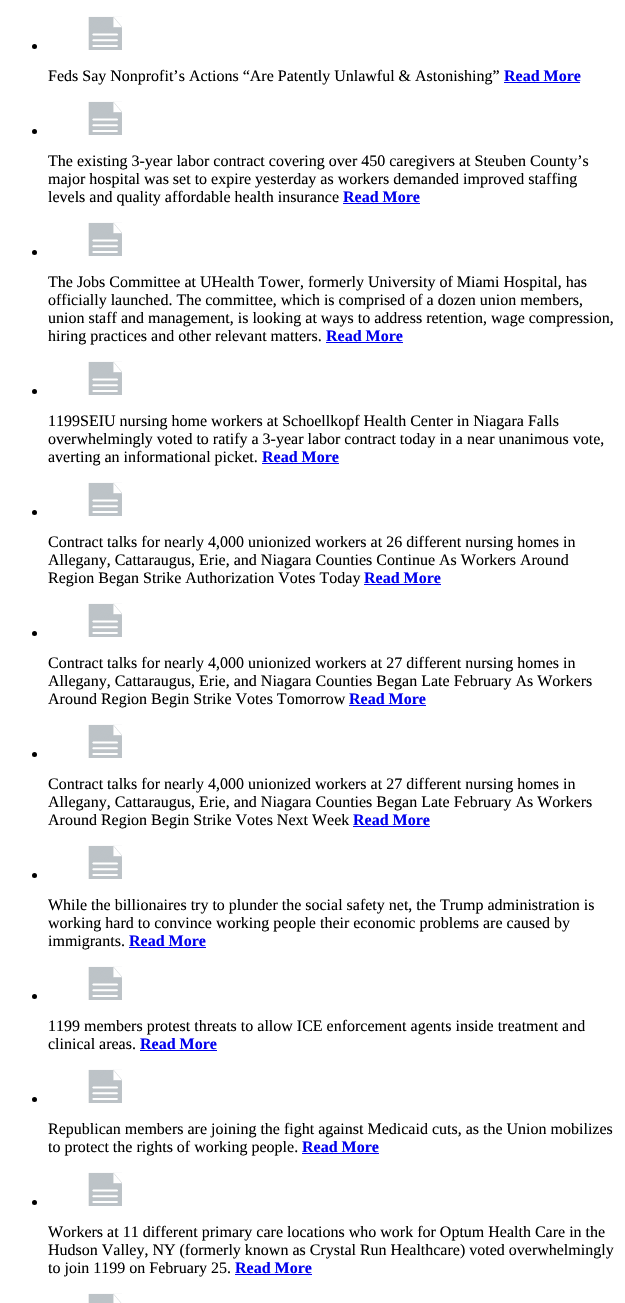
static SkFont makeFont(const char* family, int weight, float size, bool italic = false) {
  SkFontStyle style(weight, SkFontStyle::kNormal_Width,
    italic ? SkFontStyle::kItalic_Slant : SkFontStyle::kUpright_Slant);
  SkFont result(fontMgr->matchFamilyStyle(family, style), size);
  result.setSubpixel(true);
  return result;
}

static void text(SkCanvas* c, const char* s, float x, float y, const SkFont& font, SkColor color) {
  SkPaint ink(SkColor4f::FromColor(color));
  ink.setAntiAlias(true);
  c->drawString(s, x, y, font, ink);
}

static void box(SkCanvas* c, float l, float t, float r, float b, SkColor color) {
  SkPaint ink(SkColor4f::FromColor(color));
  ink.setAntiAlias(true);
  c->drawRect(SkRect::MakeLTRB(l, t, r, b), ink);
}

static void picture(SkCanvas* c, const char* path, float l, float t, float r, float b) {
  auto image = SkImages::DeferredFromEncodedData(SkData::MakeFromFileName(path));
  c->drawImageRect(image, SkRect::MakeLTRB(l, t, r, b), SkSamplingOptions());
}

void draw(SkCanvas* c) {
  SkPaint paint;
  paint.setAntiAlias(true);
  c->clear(0xffffffff);
  paint.setColor(0xff000000);
  c->drawCircle(34.5f, 46.5f, 2.5f, paint);
  picture(c, "img_01.png", 88, 16, 122, 50);
  SkFont face1 = makeFont("Liberation Serif", 400, 16);
  text(c, "Feds Say Nonprofit’s Actions “Are Patently Unlawful & Astonishing”", 48, 81, face1, 0xff000000);
  SkFont face2 = makeFont("Liberation Serif", 700, 16);
  text(c, "Read More", 504, 81, face2, 0xff0000ee);
  box(c, 504, 82, 580, 83, 0xff0000ee);
  c->drawCircle(34.5f, 131.5f, 2.5f, paint);
  picture(c, "img_01.png", 88, 101, 122, 135);
  text(c, "The existing 3-year labor contract covering over 450 caregivers at Steuben County’s", 48, 166, face1, 0xff000000);
  text(c, "major hospital was set to expire yesterday as workers demanded improved staffing", 48, 184, face1, 0xff000000);
  text(c, "levels and quality affordable health insurance", 48, 202, face1, 0xff000000);
  text(c, "Read More", 343, 202, face2, 0xff0000ee);
  box(c, 343, 203, 420, 204, 0xff0000ee);
  c->drawCircle(34.5f, 252.5f, 2.5f, paint);
  picture(c, "img_01.png", 88, 222, 122, 256);
  text(c, "The Jobs Committee at UHealth Tower, formerly University of Miami Hospital, has", 48, 287, face1, 0xff000000);
  text(c, "officially launched. The committee, which is comprised of a dozen union members,", 48, 305, face1, 0xff000000);
  text(c, "union staff and management, is looking at ways to address retention, wage compression,", 48, 323, face1, 0xff000000);
  text(c, "hiring practices and other relevant matters.", 48, 341, face1, 0xff000000);
  text(c, "Read More", 326, 341, face2, 0xff0000ee);
  box(c, 326, 342, 403, 343, 0xff0000ee);
  c->drawCircle(34.5f, 391.5f, 2.5f, paint);
  picture(c, "img_01.png", 88, 361, 122, 395);
  text(c, "1199SEIU nursing home workers at Schoellkopf Health Center in Niagara Falls", 48, 426, face1, 0xff000000);
  text(c, "overwhelmingly voted to ratify a 3-year labor contract today in a near unanimous vote,", 48, 444, face1, 0xff000000);
  text(c, "averting an informational picket.", 48, 462, face1, 0xff000000);
  text(c, "Read More", 262, 462, face2, 0xff0000ee);
  box(c, 262, 463, 339, 464, 0xff0000ee);
  c->drawCircle(34.5f, 512.5f, 2.5f, paint);
  picture(c, "img_01.png", 88, 482, 122, 516);
  text(c, "Contract talks for nearly 4,000 unionized workers at 26 different nursing homes in", 48, 547, face1, 0xff000000);
  text(c, "Allegany, Cattaraugus, Erie, and Niagara Counties Continue As Workers Around", 48, 565, face1, 0xff000000);
  text(c, "Region Began Strike Authorization Votes Today", 48, 583, face1, 0xff000000);
  text(c, "Read More", 364, 583, face2, 0xff0000ee);
  box(c, 364, 584, 441, 585, 0xff0000ee);
  c->drawCircle(34.5f, 633.5f, 2.5f, paint);
  picture(c, "img_01.png", 88, 603, 122, 637);
  text(c, "Contract talks for nearly 4,000 unionized workers at 27 different nursing homes in", 48, 668, face1, 0xff000000);
  text(c, "Allegany, Cattaraugus, Erie, and Niagara Counties Began Late February As Workers", 48, 686, face1, 0xff000000);
  text(c, "Around Region Begin Strike Votes Tomorrow", 48, 704, face1, 0xff000000);
  text(c, "Read More", 349, 704, face2, 0xff0000ee);
  box(c, 349, 705, 426, 706, 0xff0000ee);
  c->drawCircle(34.5f, 754.5f, 2.5f, paint);
  picture(c, "img_01.png", 88, 724, 122, 758);
  text(c, "Contract talks for nearly 4,000 unionized workers at 27 different nursing homes in", 48, 789, face1, 0xff000000);
  text(c, "Allegany, Cattaraugus, Erie, and Niagara Counties Began Late February As Workers", 48, 807, face1, 0xff000000);
  text(c, "Around Region Begin Strike Votes Next Week", 48, 825, face1, 0xff000000);
  text(c, "Read More", 353, 825, face2, 0xff0000ee);
  box(c, 353, 826, 430, 827, 0xff0000ee);
  c->drawCircle(34.5f, 875.5f, 2.5f, paint);
  picture(c, "img_01.png", 88, 845, 122, 879);
  text(c, "While the billionaires try to plunder the social safety net, the Trump administration is", 48, 910, face1, 0xff000000);
  text(c, "working hard to convince working people their economic problems are caused by", 48, 928, face1, 0xff000000);
  text(c, "immigrants.", 48, 946, face1, 0xff000000);
  text(c, "Read More", 129, 946, face2, 0xff0000ee);
  box(c, 129, 947, 206, 948, 0xff0000ee);
  c->drawCircle(34.5f, 996.5f, 2.5f, paint);
  picture(c, "img_01.png", 88, 966, 122, 1000);
  text(c, "1199 members protest threats to allow ICE enforcement agents inside treatment and", 48, 1031, face1, 0xff000000);
  text(c, "clinical areas.", 48, 1049, face1, 0xff000000);
  text(c, "Read More", 140, 1049, face2, 0xff0000ee);
  box(c, 140, 1050, 217, 1051, 0xff0000ee);
  c->drawCircle(34.5f, 1099.5f, 2.5f, paint);
  picture(c, "img_01.png", 88, 1069, 122, 1103);
  text(c, "Republican members are joining the fight against Medicaid cuts, as the Union mobilizes", 48, 1134, face1, 0xff000000);
  text(c, "to protect the rights of working people.", 48, 1152, face1, 0xff000000);
  text(c, "Read More", 302, 1152, face2, 0xff0000ee);
  box(c, 302, 1153, 379, 1154, 0xff0000ee);
  c->drawCircle(34.5f, 1202.5f, 2.5f, paint);
  picture(c, "img_01.png", 88, 1172, 122, 1206);
  text(c, "Workers at 11 different primary care locations who work for Optum Health Care in the", 48, 1237, face1, 0xff000000);
  text(c, "Hudson Valley, NY (formerly known as Crystal Run Healthcare) voted overwhelmingly", 48, 1255, face1, 0xff000000);
  text(c, "to join 1199 on February 25.", 48, 1273, face1, 0xff000000);
  text(c, "Read More", 235, 1273, face2, 0xff0000ee);
  box(c, 235, 1274, 312, 1275, 0xff0000ee);
  picture(c, "img_02.png", 88, 1293, 122, 1303);
}
